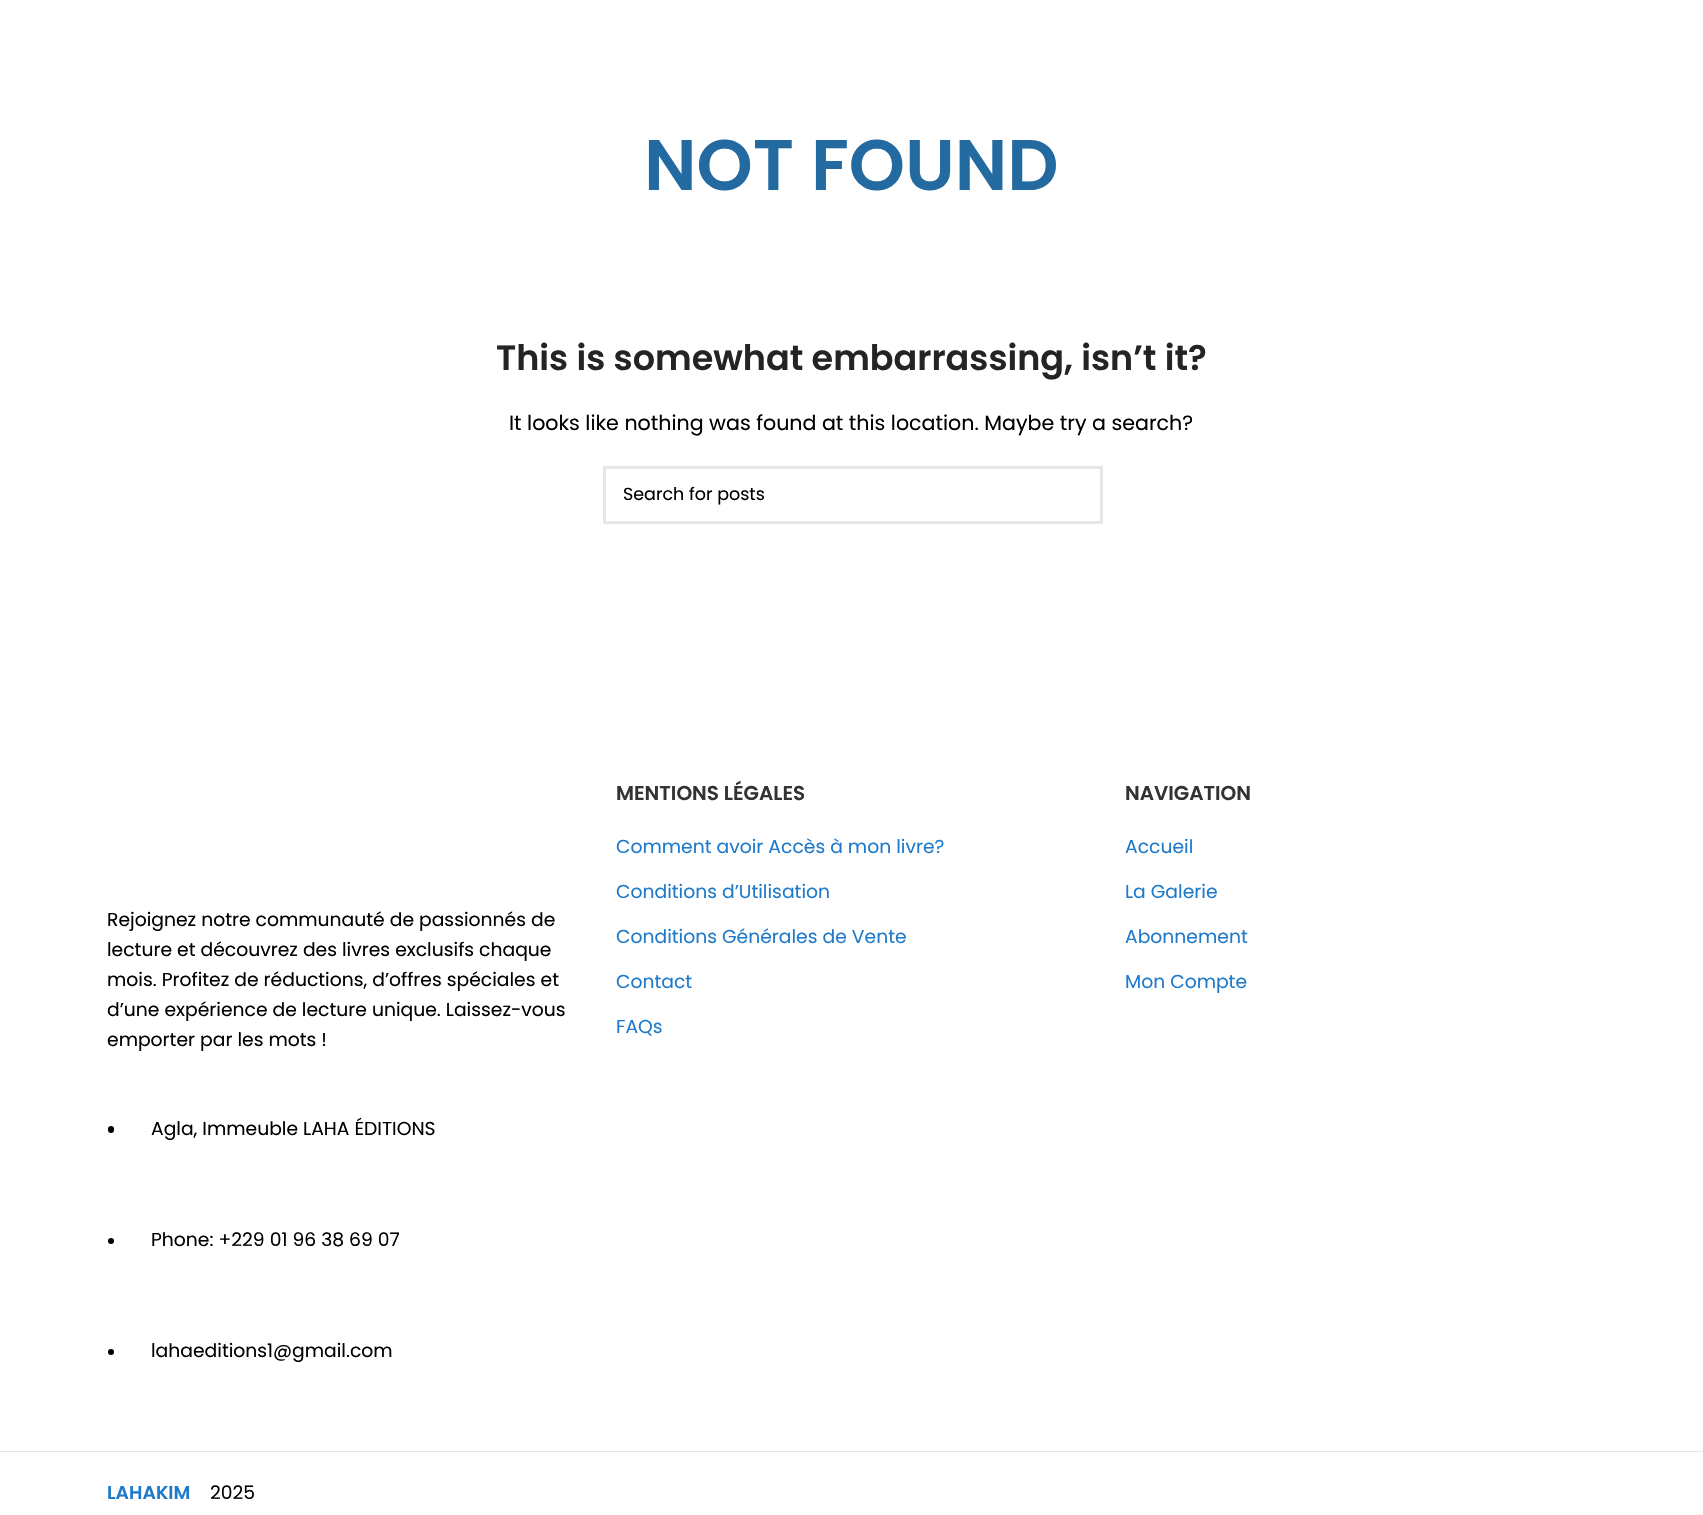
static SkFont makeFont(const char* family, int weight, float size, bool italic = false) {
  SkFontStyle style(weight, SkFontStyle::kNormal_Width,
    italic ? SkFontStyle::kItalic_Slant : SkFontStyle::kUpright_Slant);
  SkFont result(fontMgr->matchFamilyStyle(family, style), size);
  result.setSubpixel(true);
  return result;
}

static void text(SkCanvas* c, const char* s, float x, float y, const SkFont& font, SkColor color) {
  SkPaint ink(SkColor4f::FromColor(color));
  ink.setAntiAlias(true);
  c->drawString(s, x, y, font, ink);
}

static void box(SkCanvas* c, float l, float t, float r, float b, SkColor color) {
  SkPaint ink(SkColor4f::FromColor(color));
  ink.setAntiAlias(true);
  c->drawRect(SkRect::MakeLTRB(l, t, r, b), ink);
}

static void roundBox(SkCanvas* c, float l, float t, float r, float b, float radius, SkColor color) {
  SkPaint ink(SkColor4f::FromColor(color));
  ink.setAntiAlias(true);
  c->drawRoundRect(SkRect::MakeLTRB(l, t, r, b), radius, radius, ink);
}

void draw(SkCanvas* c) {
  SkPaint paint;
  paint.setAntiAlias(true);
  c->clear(0xffffffff);
  SkFont face1 = makeFont("Poppins", 600, 71.5f);
  text(c, "NOT FOUND", 644, 190, face1, 0xff236aa1);
  SkFont face2 = makeFont("Poppins", 600, 35);
  text(c, "This is somewhat embarrassing, isn’t it?", 496, 370, face2, 0xff242424);
  SkFont face3 = makeFont("Poppins", 400, 20.6f);
  text(c, "It looks like nothing was found at this location. Maybe try a search?", 509, 430, face3, 0xff000000);
  paint.setStyle(SkPaint::kStroke_Style);
  paint.setStrokeWidth(3);
  paint.setColor(0xffe6e6e6);
  c->drawRect(SkRect::MakeLTRB(604.5f, 467.5f, 1101.5f, 522.5f), paint);
  SkFont face4 = makeFont("Poppins", 400, 17.5f);
  text(c, "Search for posts", 623, 500, face4, 0xff000000);
  SkFont face5 = makeFont("Poppins", 600, 20);
  text(c, "MENTIONS LÉGALES", 616, 800, face5, 0xff333333);
  SkFont face6 = makeFont("Poppins", 400, 18.75f);
  text(c, "Comment avoir Accès à mon livre?", 616, 853, face6, 0xff1f7aca);
  text(c, "Conditions d’Utilisation", 616, 898, face6, 0xff1f7aca);
  text(c, "Conditions Générales de Vente", 616, 943, face6, 0xff1f7aca);
  text(c, "Contact", 616, 988, face6, 0xff1f7aca);
  text(c, "FAQs", 616, 1033, face6, 0xff1f7aca);
  text(c, "NAVIGATION", 1125, 800, face5, 0xff333333);
  text(c, "Accueil", 1125, 853, face6, 0xff1f7aca);
  text(c, "La Galerie", 1125, 898, face6, 0xff1f7aca);
  text(c, "Abonnement", 1125, 943, face6, 0xff1f7aca);
  text(c, "Mon Compte", 1125, 988, face6, 0xff1f7aca);
  text(c, "Rejoignez notre communauté de passionnés de", 107, 926, face6, 0xff000000);
  text(c, "lecture et découvrez des livres exclusifs chaque", 107, 956, face6, 0xff000000);
  text(c, "mois. Profitez de réductions, d’offres spéciales et", 107, 986, face6, 0xff000000);
  text(c, "d’une expérience de lecture unique. Laissez-vous", 107, 1016, face6, 0xff000000);
  text(c, "emporter par les mots !", 107, 1046, face6, 0xff000000);
  roundBox(c, 108, 1126, 114, 1133, 3, 0xff000000);
  text(c, "Agla, Immeuble LAHA ÉDITIONS", 151, 1135, face6, 0xff000000);
  paint.setStyle(SkPaint::kFill_Style);
  paint.setColor(0xff000000);
  c->drawCircle(111, 1241, 3, paint);
  text(c, "Phone: +229 01 96 38 69 07", 151, 1246, face6, 0xff000000);
  c->drawCircle(111, 1352, 3, paint);
  text(c, "lahaeditions1@gmail.com", 151, 1357, face6, 0xff000000);
  box(c, 0, 1451, 1703, 1452, 0xffe4e4e4);
  SkFont face7 = makeFont("Poppins", 600, 18.75f);
  text(c, "LAHAKIM", 107, 1499, face7, 0xff1f7aca);
  text(c, "2025", 210, 1499, face6, 0xff000000);
}
